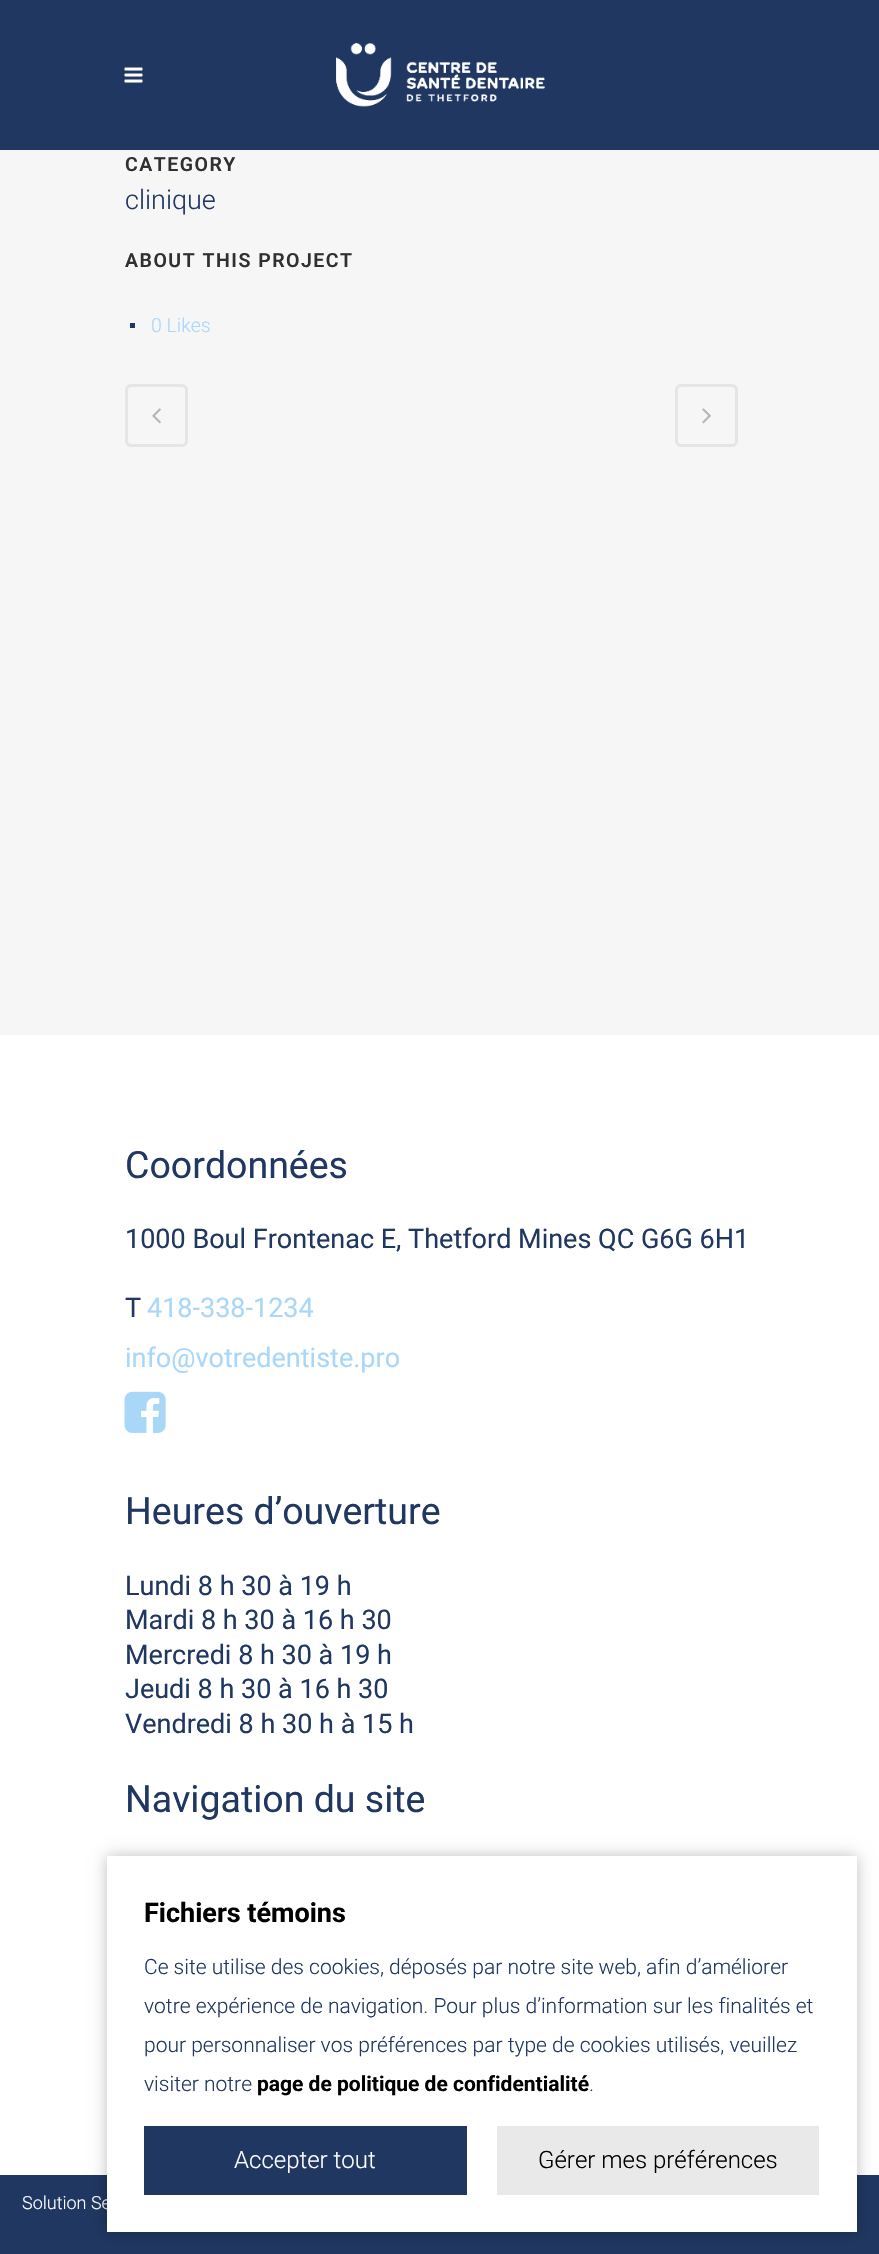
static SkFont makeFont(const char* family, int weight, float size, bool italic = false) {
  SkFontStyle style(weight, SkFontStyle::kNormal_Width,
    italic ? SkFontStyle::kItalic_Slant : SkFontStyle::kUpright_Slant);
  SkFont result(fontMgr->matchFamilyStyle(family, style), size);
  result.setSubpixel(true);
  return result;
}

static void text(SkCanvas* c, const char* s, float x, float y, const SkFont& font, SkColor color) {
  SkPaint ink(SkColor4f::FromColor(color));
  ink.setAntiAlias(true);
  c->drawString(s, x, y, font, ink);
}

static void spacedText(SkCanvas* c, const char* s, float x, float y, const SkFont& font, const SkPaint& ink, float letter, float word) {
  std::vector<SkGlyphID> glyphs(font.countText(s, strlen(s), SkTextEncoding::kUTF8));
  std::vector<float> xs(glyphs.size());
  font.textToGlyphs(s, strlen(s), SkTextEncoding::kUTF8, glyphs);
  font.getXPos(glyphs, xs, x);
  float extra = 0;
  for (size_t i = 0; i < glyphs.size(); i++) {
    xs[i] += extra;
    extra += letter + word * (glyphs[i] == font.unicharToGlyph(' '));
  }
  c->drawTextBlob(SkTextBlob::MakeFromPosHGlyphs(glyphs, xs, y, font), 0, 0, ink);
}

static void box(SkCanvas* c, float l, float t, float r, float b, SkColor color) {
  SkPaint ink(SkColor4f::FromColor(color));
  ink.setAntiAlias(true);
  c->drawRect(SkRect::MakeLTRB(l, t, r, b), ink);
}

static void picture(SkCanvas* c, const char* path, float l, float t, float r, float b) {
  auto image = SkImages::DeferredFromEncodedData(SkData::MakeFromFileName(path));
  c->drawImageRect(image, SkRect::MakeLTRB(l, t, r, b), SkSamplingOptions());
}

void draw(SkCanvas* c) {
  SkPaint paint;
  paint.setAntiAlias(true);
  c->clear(0xfff6f6f6);
  box(c, 0, 0, 879, 150, 0xff203761);
  picture(c, "img_01.png", 124, 67, 143, 83);
  picture(c, "img_02.png", 336, 43, 545, 107);
  SkFont face1 = makeFont("Roboto", 600, 19.5f);
  paint.setColor(0xff303030);
  spacedText(c, "CATEGORY", 125, 171, face1, paint, 1.5f, 0);
  SkFont face2 = makeFont("Roboto", 300, 27);
  text(c, "clinique", 125, 209, face2, 0xff203761);
  spacedText(c, "ABOUT THIS PROJECT", 125, 267, face1, paint, 1.5f, 0);
  box(c, 130, 323, 135, 328, 0xff203761);
  SkFont face3 = makeFont("Roboto", 300, 19.5f);
  text(c, "0 Likes", 151, 332, face3, 0xffa9d7f8);
  paint.setStyle(SkPaint::kStroke_Style);
  paint.setStrokeWidth(3);
  paint.setColor(0xffe5e5e5);
  c->drawRoundRect(SkRect::MakeLTRB(126.5f, 385.5f, 186.5f, 445.5f), 4.5f, 4.5f, paint);
  picture(c, "img_03.png", 152, 408, 161, 424);
  c->drawRoundRect(SkRect::MakeLTRB(676.5f, 385.5f, 736.5f, 445.5f), 4.5f, 4.5f, paint);
  picture(c, "img_04.png", 702, 408, 711, 424);
  box(c, 0, 1035, 879, 2175, 0xffffffff);
  SkFont face4 = makeFont("Roboto", 400, 37.5f);
  text(c, "Coordonnées", 125, 1178, face4, 0xff203761);
  SkFont face5 = makeFont("Roboto", 400, 27);
  text(c, "1000 Boul Frontenac E, Thetford Mines QC G6G 6H1", 125, 1248, face5, 0xff203761);
  text(c, "T", 125, 1317, face5, 0xff203761);
  text(c, "418-338-1234", 147, 1317, face5, 0xffa9d7f8);
  text(c, "info@votredentiste.pro", 125, 1367, face5, 0xffa9d7f8);
  picture(c, "img_05.png", 124, 1391, 166, 1433);
  text(c, "Heures d’ouverture", 125, 1524, face4, 0xff203761);
  text(c, "Lundi 8 h 30 à 19 h", 125, 1595, face5, 0xff203761);
  text(c, "Mardi 8 h 30 à 16 h 30", 125, 1629, face5, 0xff203761);
  text(c, "Mercredi 8 h 30 à 19 h", 125, 1664, face5, 0xff203761);
  text(c, "Jeudi 8 h 30 à 16 h 30", 125, 1698, face5, 0xff203761);
  text(c, "Vendredi 8 h 30 h à 15 h", 125, 1733, face5, 0xff203761);
  text(c, "Navigation du site", 125, 1812, face4, 0xff203761);
  box(c, 0, 2175, 879, 2254, 0xff203761);
  SkFont face6 = makeFont("Roboto", 300, 18);
  text(c, "Solution Se", 22, 2209, face6, 0xffffffff);
  paint.setStyle(SkPaint::kFill_Style);
  paint.setColor(0x40000000);
  paint.setMaskFilter(SkMaskFilter::MakeBlur(kNormal_SkBlurStyle, 7.5f));
  c->drawRect(SkRect::MakeLTRB(107, 1856, 857, 2232), paint);
  paint.setMaskFilter(nullptr);
  box(c, 107, 1856, 857, 2232, 0xffffffff);
  SkFont face7 = makeFont("Roboto", 700, 27);
  text(c, "Fichiers témoins", 144, 1922, face7, 0xff000000);
  SkFont face8 = makeFont("Roboto", 300, 21);
  text(c, "Ce site utilise des cookies, déposés par notre site web, afin d’améliorer", 144, 1974, face8, 0xff203761);
  text(c, "votre expérience de navigation. Pour plus d’information sur les finalités et", 144, 2013, face8, 0xff203761);
  text(c, "pour personnaliser vos préférences par type de cookies utilisés, veuillez", 144, 2052, face8, 0xff203761);
  text(c, "visiter notre", 144, 2091, face8, 0xff203761);
  SkFont face9 = makeFont("Roboto", 700, 21);
  text(c, "page de politique de confidentialité", 257, 2091, face9, 0xff000000);
  text(c, ".", 589, 2091, face8, 0xff203761);
  box(c, 144, 2126, 467, 2195, 0xff203761);
  SkFont face10 = makeFont("Roboto", 300, 24);
  text(c, "Accepter tout", 234, 2168, face10, 0xffffffff);
  box(c, 497, 2126, 819, 2195, 0xffe9e9e9);
  text(c, "Gérer mes préférences", 538, 2168, face10, 0xff000000);
}
